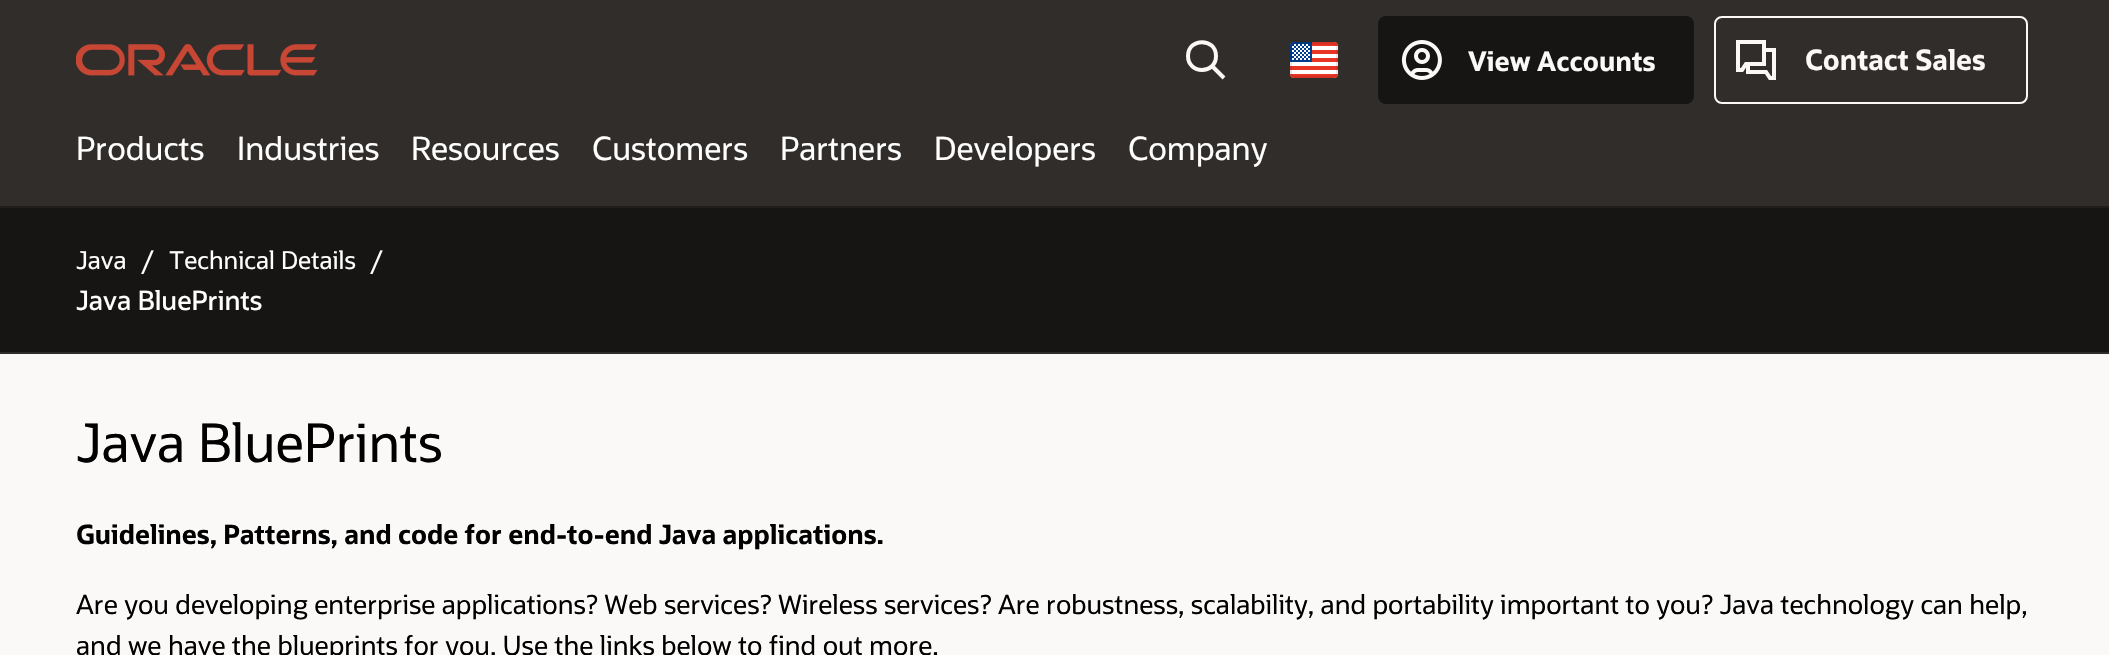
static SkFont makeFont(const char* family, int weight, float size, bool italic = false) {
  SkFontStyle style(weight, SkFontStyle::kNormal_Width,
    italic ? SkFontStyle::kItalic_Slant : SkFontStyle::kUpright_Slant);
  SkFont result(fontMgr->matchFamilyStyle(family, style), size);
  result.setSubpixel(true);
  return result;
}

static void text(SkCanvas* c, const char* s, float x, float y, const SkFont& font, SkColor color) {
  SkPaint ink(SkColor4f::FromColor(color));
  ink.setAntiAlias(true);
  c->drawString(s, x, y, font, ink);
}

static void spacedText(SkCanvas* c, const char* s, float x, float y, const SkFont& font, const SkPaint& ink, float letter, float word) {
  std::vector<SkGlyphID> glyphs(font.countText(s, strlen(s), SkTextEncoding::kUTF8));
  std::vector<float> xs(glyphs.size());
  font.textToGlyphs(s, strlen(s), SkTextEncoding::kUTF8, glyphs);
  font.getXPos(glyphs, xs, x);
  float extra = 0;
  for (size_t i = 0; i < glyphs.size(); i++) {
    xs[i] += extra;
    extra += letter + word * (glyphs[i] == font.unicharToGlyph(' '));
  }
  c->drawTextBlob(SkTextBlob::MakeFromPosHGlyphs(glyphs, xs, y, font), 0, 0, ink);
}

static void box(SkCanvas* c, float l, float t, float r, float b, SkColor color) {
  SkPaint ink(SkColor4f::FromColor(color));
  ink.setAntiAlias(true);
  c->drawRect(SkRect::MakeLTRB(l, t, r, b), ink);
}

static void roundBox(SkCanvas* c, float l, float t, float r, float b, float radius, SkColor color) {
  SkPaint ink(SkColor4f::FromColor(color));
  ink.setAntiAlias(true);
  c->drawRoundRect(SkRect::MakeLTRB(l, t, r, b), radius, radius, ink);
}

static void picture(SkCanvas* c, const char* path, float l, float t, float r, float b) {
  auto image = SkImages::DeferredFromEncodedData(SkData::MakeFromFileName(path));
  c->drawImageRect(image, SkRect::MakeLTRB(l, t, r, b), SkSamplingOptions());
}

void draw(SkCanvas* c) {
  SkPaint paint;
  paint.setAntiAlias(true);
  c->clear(0xfffbf9f8);
  box(c, 0, 0, 2109, 206, 0xff312d2a);
  picture(c, "img_01.png", 76, 44, 318, 76);
  paint.setStyle(SkPaint::kStroke_Style);
  paint.setStrokeWidth(4);
  paint.setColor(0xfffbf9f8);
  c->drawPath(SkPathBuilder().moveTo(1212, 66).lineTo(1224, 78).moveTo(1216, 56).cubicTo(1216, 74.5f, 1188, 74.5f, 1188, 56).cubicTo(1188, 37.5f, 1216, 37.5f, 1216, 56).close().detach(), paint);
  picture(c, "img_02.png", 1290, 42, 1338, 78);
  roundBox(c, 1378, 16, 1694, 104, 8, 0xff161513);
  picture(c, "img_03.png", 1401, 40, 1442, 80);
  SkFont face1 = makeFont("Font", 700, 26.75f);
  text(c, "View Accounts", 1468, 71, face1, 0xfffbf9f8);
  picture(c, "img_04.png", 1736, 40, 1776, 80);
  paint.setStrokeWidth(2);
  c->drawRoundRect(SkRect::MakeLTRB(1715, 17, 2027, 103), 7, 7, paint);
  SkFont face2 = makeFont("Font", 700, 28);
  text(c, "Contact Sales", 1805, 70, face2, 0xfffbf9f8);
  SkFont face3 = makeFont("Font", 400, 32);
  text(c, "Products", 76, 160, face3, 0xffffffff);
  text(c, "Industries", 237, 160, face3, 0xffffffff);
  text(c, "Resources", 411, 160, face3, 0xffffffff);
  text(c, "Customers", 592, 160, face3, 0xffffffff);
  text(c, "Partners", 780, 160, face3, 0xffffffff);
  text(c, "Developers", 934, 160, face3, 0xffffffff);
  text(c, "Company", 1128, 160, face3, 0xffffffff);
  box(c, 0, 206, 2109, 208, 0xff201e1c);
  box(c, 0, 208, 2109, 352, 0xff161513);
  box(c, 0, 352, 2109, 354, 0xff2d2c2b);
  SkFont face4 = makeFont("Font", 400, 24.5f);
  text(c, "Java", 76, 269, face4, 0xffffffff);
  text(c, "/", 141, 269, face4, 0xffffffff);
  text(c, "Technical Details", 169, 269, face4, 0xffffffff);
  text(c, "/", 370, 269, face4, 0xffffffff);
  SkFont face5 = makeFont("Font", 500, 26.47f);
  text(c, "Java BluePrints", 76, 310, face5, 0xffffffff);
  SkFont face6 = makeFont("Font", 400, 53);
  text(c, "Java BluePrints", 76, 462, face6, 0xff000000);
  SkFont face7 = makeFont("Font", 700, 26.47f);
  paint.setStyle(SkPaint::kFill_Style);
  paint.setColor(0xff000000);
  spacedText(c, "Guidelines, Patterns, and code for end-to-end Java applications.", 76, 544, face7, paint, 0, -0.25f);
  SkFont face8 = makeFont("Font", 400, 26.47f);
  spacedText(c, "Are you developing enterprise applications? Web services? Wireless services? Are robustness, scalability, and portability important to you? Java technology can help,", 76, 614, face8, paint, 0, -0.1f);
  text(c, "and we have the blueprints for you. Use the links below to find out more.", 76, 655, face8, 0xff000000);
}
